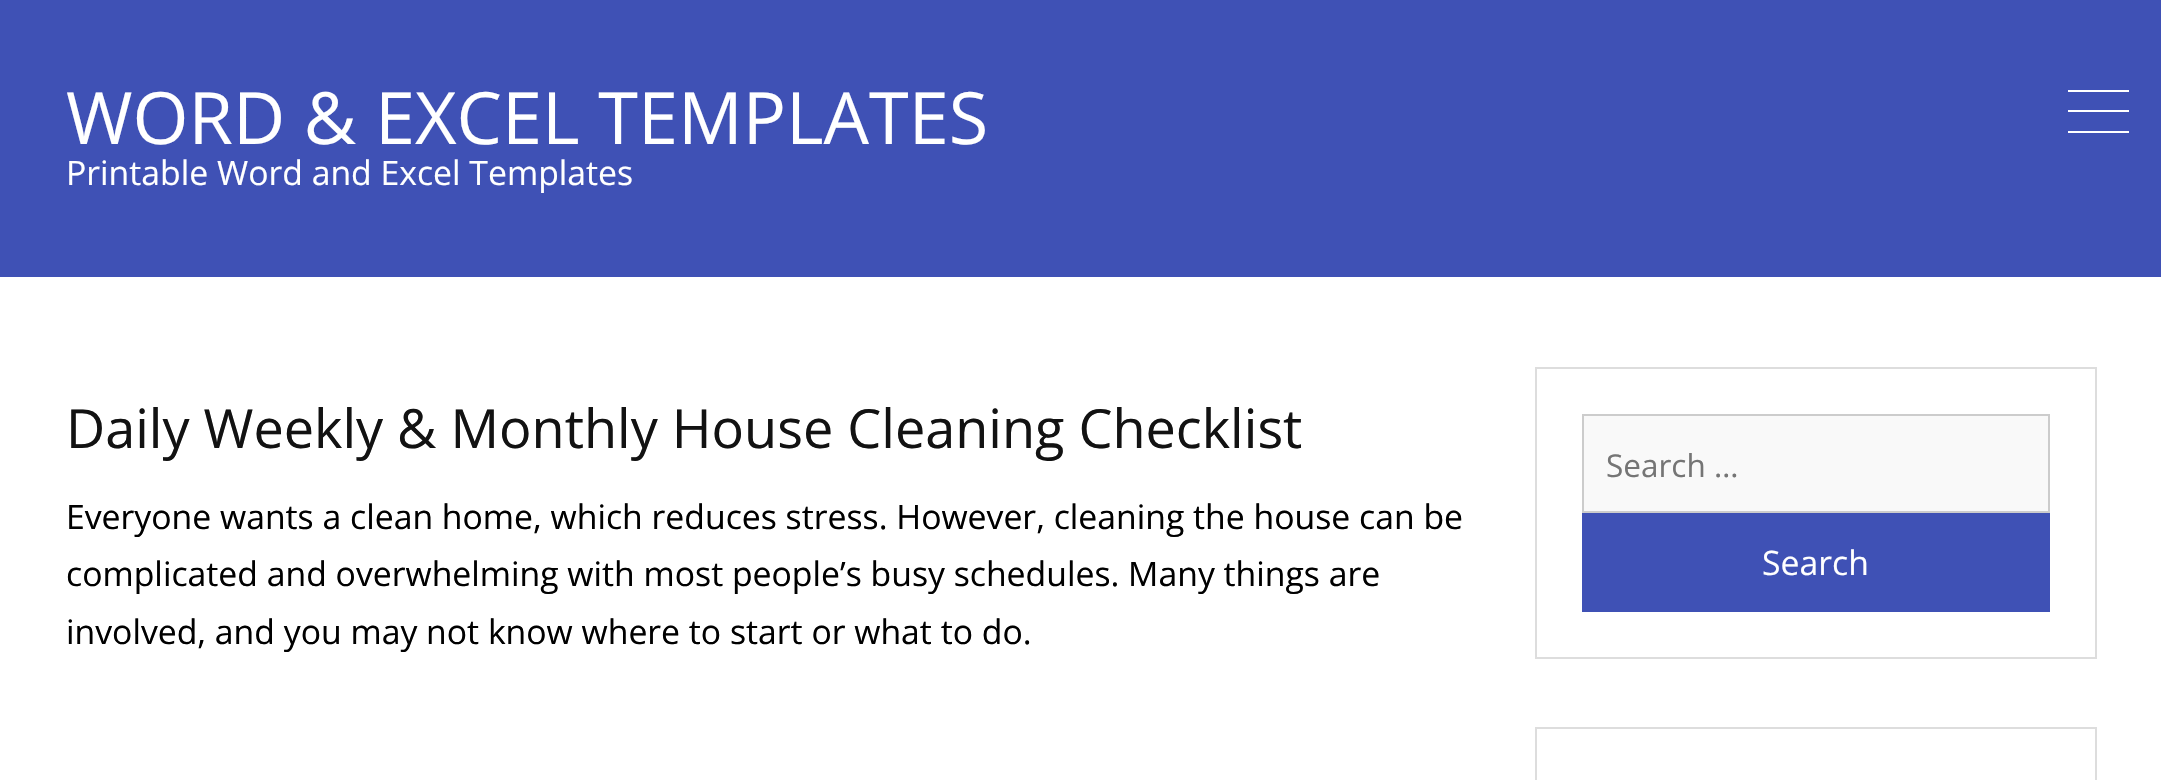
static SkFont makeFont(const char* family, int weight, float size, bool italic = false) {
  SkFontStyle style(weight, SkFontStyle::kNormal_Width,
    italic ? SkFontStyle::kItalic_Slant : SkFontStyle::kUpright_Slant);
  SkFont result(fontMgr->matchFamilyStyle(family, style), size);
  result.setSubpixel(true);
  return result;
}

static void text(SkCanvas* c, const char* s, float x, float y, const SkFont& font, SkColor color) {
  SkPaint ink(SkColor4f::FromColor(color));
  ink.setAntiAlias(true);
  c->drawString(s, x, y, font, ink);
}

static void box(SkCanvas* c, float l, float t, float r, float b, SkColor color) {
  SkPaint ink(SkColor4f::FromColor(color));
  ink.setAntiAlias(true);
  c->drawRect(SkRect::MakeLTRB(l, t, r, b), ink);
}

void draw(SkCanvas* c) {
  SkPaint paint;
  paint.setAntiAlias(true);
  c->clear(0xffffffff);
  box(c, 0, 0, 2161, 277, 0xff3f51b5);
  SkFont face1 = makeFont("Open Sans", 400, 72);
  text(c, "WORD & EXCEL TEMPLATES", 66, 144, face1, 0xffffffff);
  SkFont face2 = makeFont("Open Sans", 400, 33.75f);
  text(c, "Printable Word and Excel Templates", 66, 185, face2, 0xffffffff);
  box(c, 2068, 90, 2129, 92, 0xffffffff);
  box(c, 2068, 110, 2129, 112, 0xffffffff);
  box(c, 2068, 131, 2129, 133, 0xffffffff);
  SkFont face3 = makeFont("Open Sans", 400, 54);
  text(c, "Daily Weekly & Monthly House Cleaning Checklist", 66, 448, face3, 0xff121212);
  text(c, "Everyone wants a clean home, which reduces stress. However, cleaning the house can be", 66, 529, face2, 0xff000000);
  text(c, "complicated and overwhelming with most people’s busy schedules. Many things are", 66, 586, face2, 0xff000000);
  text(c, "involved, and you may not know where to start or what to do.", 66, 644, face2, 0xff000000);
  paint.setStyle(SkPaint::kStroke_Style);
  paint.setStrokeWidth(2);
  paint.setColor(0xffdddddd);
  c->drawRect(SkRect::MakeLTRB(1536, 368, 2096, 658), paint);
  paint.setStyle(SkPaint::kFill_Style);
  paint.setColor(0xfff9f9f9);
  c->drawRect(SkRect::MakeLTRB(1583, 415, 2049, 512), paint);
  paint.setStyle(SkPaint::kStroke_Style);
  paint.setColor(0xffcccccc);
  c->drawRect(SkRect::MakeLTRB(1583, 415, 2049, 512), paint);
  SkFont face4 = makeFont("Open Sans", 400, 31.5f);
  text(c, "Search …", 1606, 477, face4, 0xff757575);
  box(c, 1582, 513, 2050, 612, 0xff3f51b5);
  text(c, "Search", 1762, 575, face2, 0xffffffff);
  paint.setColor(0xffdddddd);
  c->drawRect(SkRect::MakeLTRB(1536, 728, 2096, 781), paint);
}
